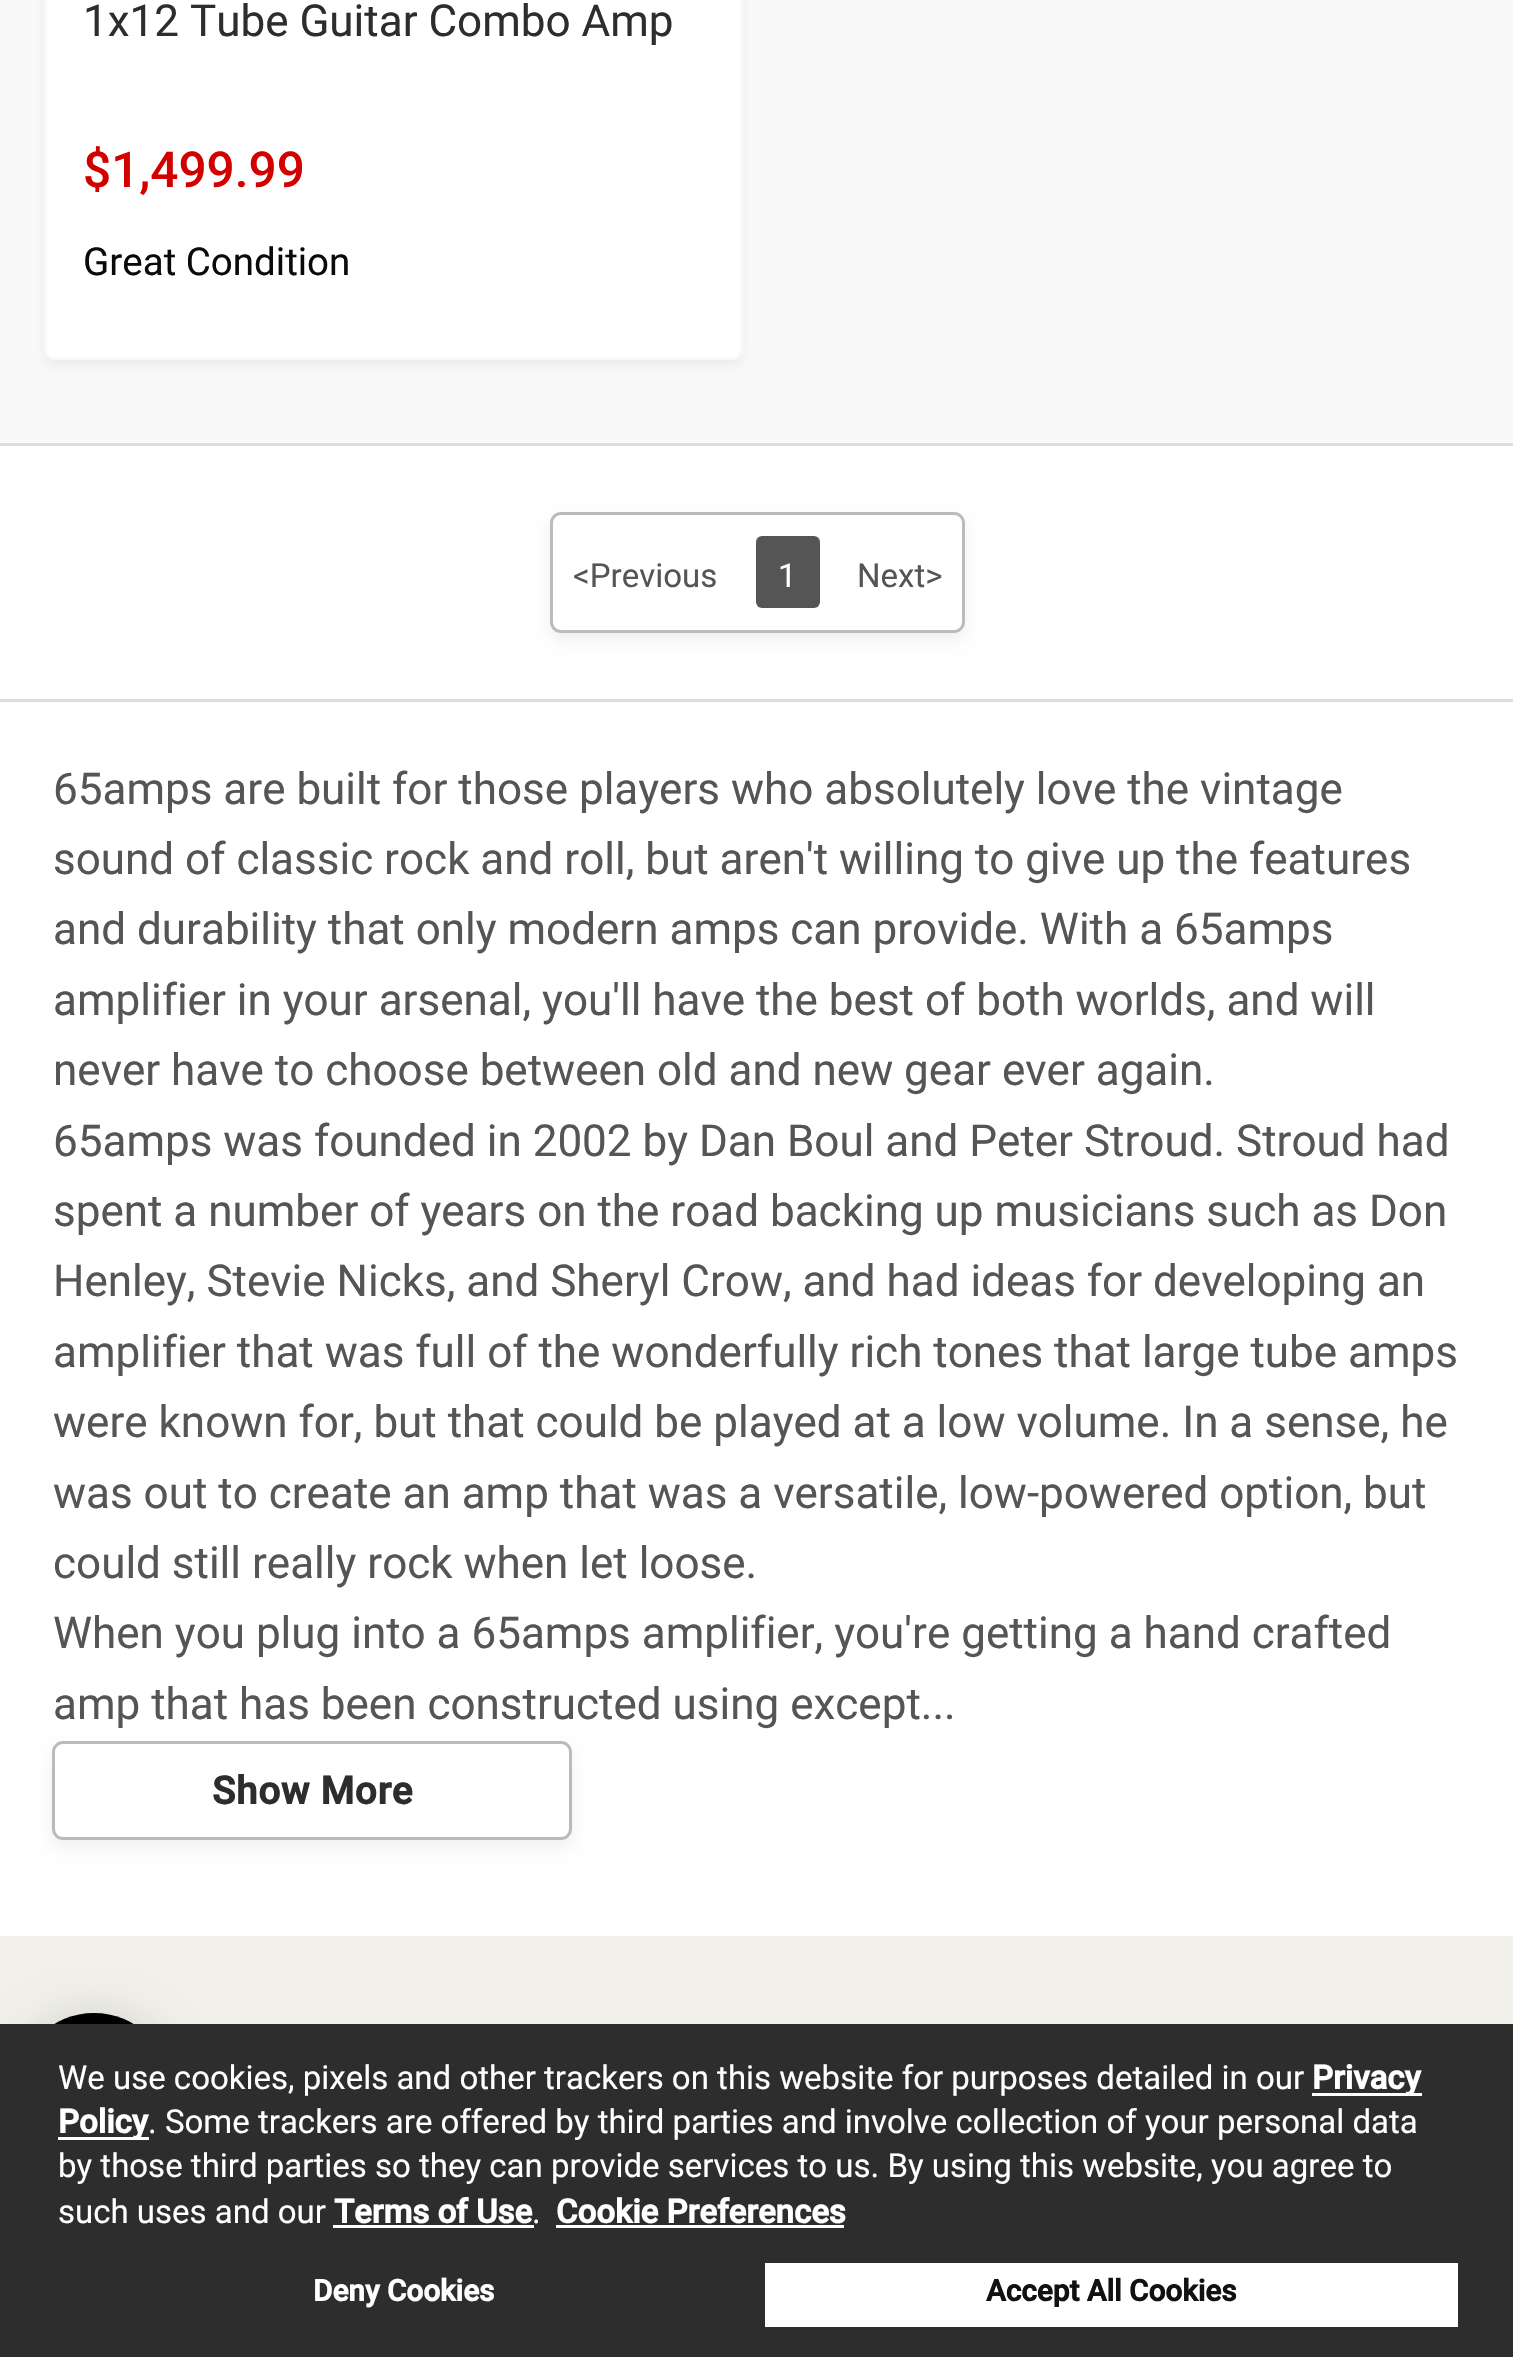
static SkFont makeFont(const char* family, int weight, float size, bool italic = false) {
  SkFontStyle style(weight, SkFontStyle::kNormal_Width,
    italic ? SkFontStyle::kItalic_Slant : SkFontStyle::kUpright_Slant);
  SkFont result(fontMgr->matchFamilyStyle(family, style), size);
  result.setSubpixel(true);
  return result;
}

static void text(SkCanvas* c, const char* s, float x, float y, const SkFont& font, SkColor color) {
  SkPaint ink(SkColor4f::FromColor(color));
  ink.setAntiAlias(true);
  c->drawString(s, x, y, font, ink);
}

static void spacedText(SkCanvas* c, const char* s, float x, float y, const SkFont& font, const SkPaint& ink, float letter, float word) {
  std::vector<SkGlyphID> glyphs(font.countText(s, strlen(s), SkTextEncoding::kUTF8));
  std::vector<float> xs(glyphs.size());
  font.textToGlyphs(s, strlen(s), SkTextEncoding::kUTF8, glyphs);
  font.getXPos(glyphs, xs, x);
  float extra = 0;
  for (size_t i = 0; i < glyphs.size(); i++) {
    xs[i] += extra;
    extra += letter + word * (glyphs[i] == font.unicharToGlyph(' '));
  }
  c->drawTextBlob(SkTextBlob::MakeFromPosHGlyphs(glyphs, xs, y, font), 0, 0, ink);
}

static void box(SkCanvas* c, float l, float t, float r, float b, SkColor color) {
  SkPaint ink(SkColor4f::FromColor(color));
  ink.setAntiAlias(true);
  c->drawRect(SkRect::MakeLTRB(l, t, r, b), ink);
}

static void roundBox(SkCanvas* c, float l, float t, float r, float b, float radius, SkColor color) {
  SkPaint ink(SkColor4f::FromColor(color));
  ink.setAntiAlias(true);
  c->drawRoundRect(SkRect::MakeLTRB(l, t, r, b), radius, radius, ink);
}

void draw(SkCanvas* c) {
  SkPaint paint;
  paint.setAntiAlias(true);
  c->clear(0xffffffff);
  box(c, 0, 0, 1513, 443, 0xfff9f9f9);
  paint.setColor(0x0d000000);
  paint.setMaskFilter(SkMaskFilter::MakeBlur(kNormal_SkBlurStyle, 5.5f));
  c->drawRoundRect(SkRect::MakeLTRB(44, -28, 743, 366), 11, 11, paint);
  paint.setMaskFilter(nullptr);
  paint.setColor(0xffffffff);
  c->drawRoundRect(SkRect::MakeLTRB(45.5f, -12.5f, 741.5f, 358.5f), 9.5f, 9.5f, paint);
  paint.setStyle(SkPaint::kStroke_Style);
  paint.setStrokeWidth(3);
  paint.setColor(0xfff9f9f9);
  c->drawRoundRect(SkRect::MakeLTRB(45.5f, -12.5f, 741.5f, 358.5f), 9.5f, 9.5f, paint);
  SkFont face1 = makeFont("Roboto", 400, 44);
  text(c, "1x12 Tube Guitar Combo Amp", 83, 36, face1, 0xff2d2d2d);
  SkFont face2 = makeFont("Roboto", 500, 49.5f);
  text(c, "$1,499.99", 83, 187, face2, 0xffd30000);
  SkFont face3 = makeFont("Roboto", 400, 38.5f);
  text(c, "Great Condition", 83, 275, face3, 0xff0a0a0a);
  box(c, 0, 443, 1513, 446, 0xffdddddd);
  box(c, 0, 699, 1513, 702, 0xffdddddd);
  c->save();
  c->clipPath(SkPathBuilder(SkPathFillType::kEvenOdd).moveTo(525, 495).lineTo(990, 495).lineTo(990, 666).lineTo(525, 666).close().moveTo(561, 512).lineTo(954, 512).cubicTo(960, 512, 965, 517, 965, 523).lineTo(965, 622).cubicTo(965, 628, 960, 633, 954, 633).lineTo(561, 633).cubicTo(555, 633, 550, 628, 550, 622).lineTo(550, 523).cubicTo(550, 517, 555, 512, 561, 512).close().detach(), true);
  paint.setStyle(SkPaint::kFill_Style);
  paint.setColor(0x0f000000);
  paint.setMaskFilter(SkMaskFilter::MakeBlur(kNormal_SkBlurStyle, 8));
  c->drawRoundRect(SkRect::MakeLTRB(550, 520, 965, 641), 11, 11, paint);
  paint.setMaskFilter(nullptr);
  c->restore();
  paint.setStyle(SkPaint::kStroke_Style);
  paint.setColor(0xffbbbbbb);
  c->drawRoundRect(SkRect::MakeLTRB(551.5f, 513.5f, 963.5f, 631.5f), 9.5f, 9.5f, paint);
  SkFont face4 = makeFont("Roboto", 400, 33);
  text(c, "<Previous", 573, 587, face4, 0xff555555);
  roundBox(c, 756, 536, 820, 608, 6, 0xff555555);
  text(c, "1", 778, 587, face4, 0xffffffff);
  text(c, "Next>", 857, 587, face4, 0xff555555);
  text(c, "65amps are built for those players who absolutely love the vintage", 53, 804, face1, 0xff555555);
  text(c, "sound of classic rock and roll, but aren't willing to give up the features", 53, 874, face1, 0xff555555);
  text(c, "and durability that only modern amps can provide. With a 65amps", 53, 944, face1, 0xff555555);
  text(c, "amplifier in your arsenal, you'll have the best of both worlds, and will", 53, 1015, face1, 0xff555555);
  text(c, "never have to choose between old and new gear ever again.", 53, 1085, face1, 0xff555555);
  text(c, "65amps was founded in 2002 by Dan Boul and Peter Stroud. Stroud had", 53, 1156, face1, 0xff555555);
  text(c, "spent a number of years on the road backing up musicians such as Don", 53, 1226, face1, 0xff555555);
  text(c, "Henley, Stevie Nicks, and Sheryl Crow, and had ideas for developing an", 53, 1296, face1, 0xff555555);
  text(c, "amplifier that was full of the wonderfully rich tones that large tube amps", 53, 1367, face1, 0xff555555);
  text(c, "were known for, but that could be played at a low volume. In a sense, he", 53, 1437, face1, 0xff555555);
  text(c, "was out to create an amp that was a versatile, low-powered option, but", 53, 1508, face1, 0xff555555);
  text(c, "could still really rock when let loose.", 53, 1578, face1, 0xff555555);
  text(c, "When you plug into a 65amps amplifier, you're getting a hand crafted", 53, 1648, face1, 0xff555555);
  paint.setStyle(SkPaint::kFill_Style);
  paint.setColor(0x0f000000);
  paint.setMaskFilter(SkMaskFilter::MakeBlur(kNormal_SkBlurStyle, 8));
  c->drawRoundRect(SkRect::MakeLTRB(52, 1749, 572, 1848), 11, 11, paint);
  paint.setMaskFilter(nullptr);
  text(c, "amp that has been constructed using except...", 53, 1719, face1, 0xff555555);
  paint.setColor(0xffffffff);
  c->drawRoundRect(SkRect::MakeLTRB(53.5f, 1742.5f, 570.5f, 1838.5f), 9.5f, 9.5f, paint);
  paint.setStyle(SkPaint::kStroke_Style);
  paint.setColor(0xffbbbbbb);
  c->drawRoundRect(SkRect::MakeLTRB(53.5f, 1742.5f, 570.5f, 1838.5f), 9.5f, 9.5f, paint);
  SkFont face5 = makeFont("Roboto", 700, 38.5f);
  paint.setStyle(SkPaint::kFill_Style);
  paint.setColor(0xff2d2d2d);
  spacedText(c, "Show More", 212, 1804, face5, paint, 0.75f, 0);
  box(c, 0, 1936, 1513, 2024, 0xfff1f0ea);
  paint.setColor(0x21000000);
  paint.setMaskFilter(SkMaskFilter::MakeBlur(kNormal_SkBlurStyle, 22));
  c->drawRoundRect(SkRect::MakeLTRB(17, 2013, 171, 2167), 77, 77, paint);
  paint.setMaskFilter(nullptr);
  paint.setColor(0xff000000);
  c->drawCircle(94, 2090, 77, paint);
  box(c, 0, 2024, 1513, 2357, 0xff2d2d2d);
  text(c, "We use cookies, pixels and other trackers on this website for purposes detailed in our", 58, 2089, face4, 0xffffffff);
  box(c, 1312, 2093, 1422, 2096, 0xffffffff);
  SkFont face6 = makeFont("Roboto", 700, 33);
  text(c, "Privacy", 1312, 2089, face6, 0xffffffff);
  box(c, 58, 2137, 149, 2140, 0xffffffff);
  text(c, "Policy", 58, 2133, face6, 0xffffffff);
  text(c, ". Some trackers are offered by third parties and involve collection of your personal data", 148, 2133, face4, 0xffffffff);
  text(c, "by those third parties so they can provide services to us. By using this website, you agree to", 58, 2177, face4, 0xffffffff);
  text(c, "such uses and our", 58, 2223, face4, 0xffffffff);
  text(c, "Terms of Use", 334, 2223, face6, 0xffffffff);
  box(c, 333, 2225, 534, 2228, 0xffffffff);
  text(c, ".", 532, 2223, face4, 0xffffffff);
  text(c, "Cookie Preferences", 556, 2223, face6, 0xffffffff);
  box(c, 556, 2225, 844, 2228, 0xffffffff);
  SkFont face7 = makeFont("Roboto", 700, 29.75f);
  text(c, "Deny Cookies", 313, 2301, face7, 0xffffffff);
  box(c, 765, 2263, 1458, 2327, 0xffffffff);
  text(c, "Accept All Cookies", 986, 2301, face7, 0xff121010);
}
